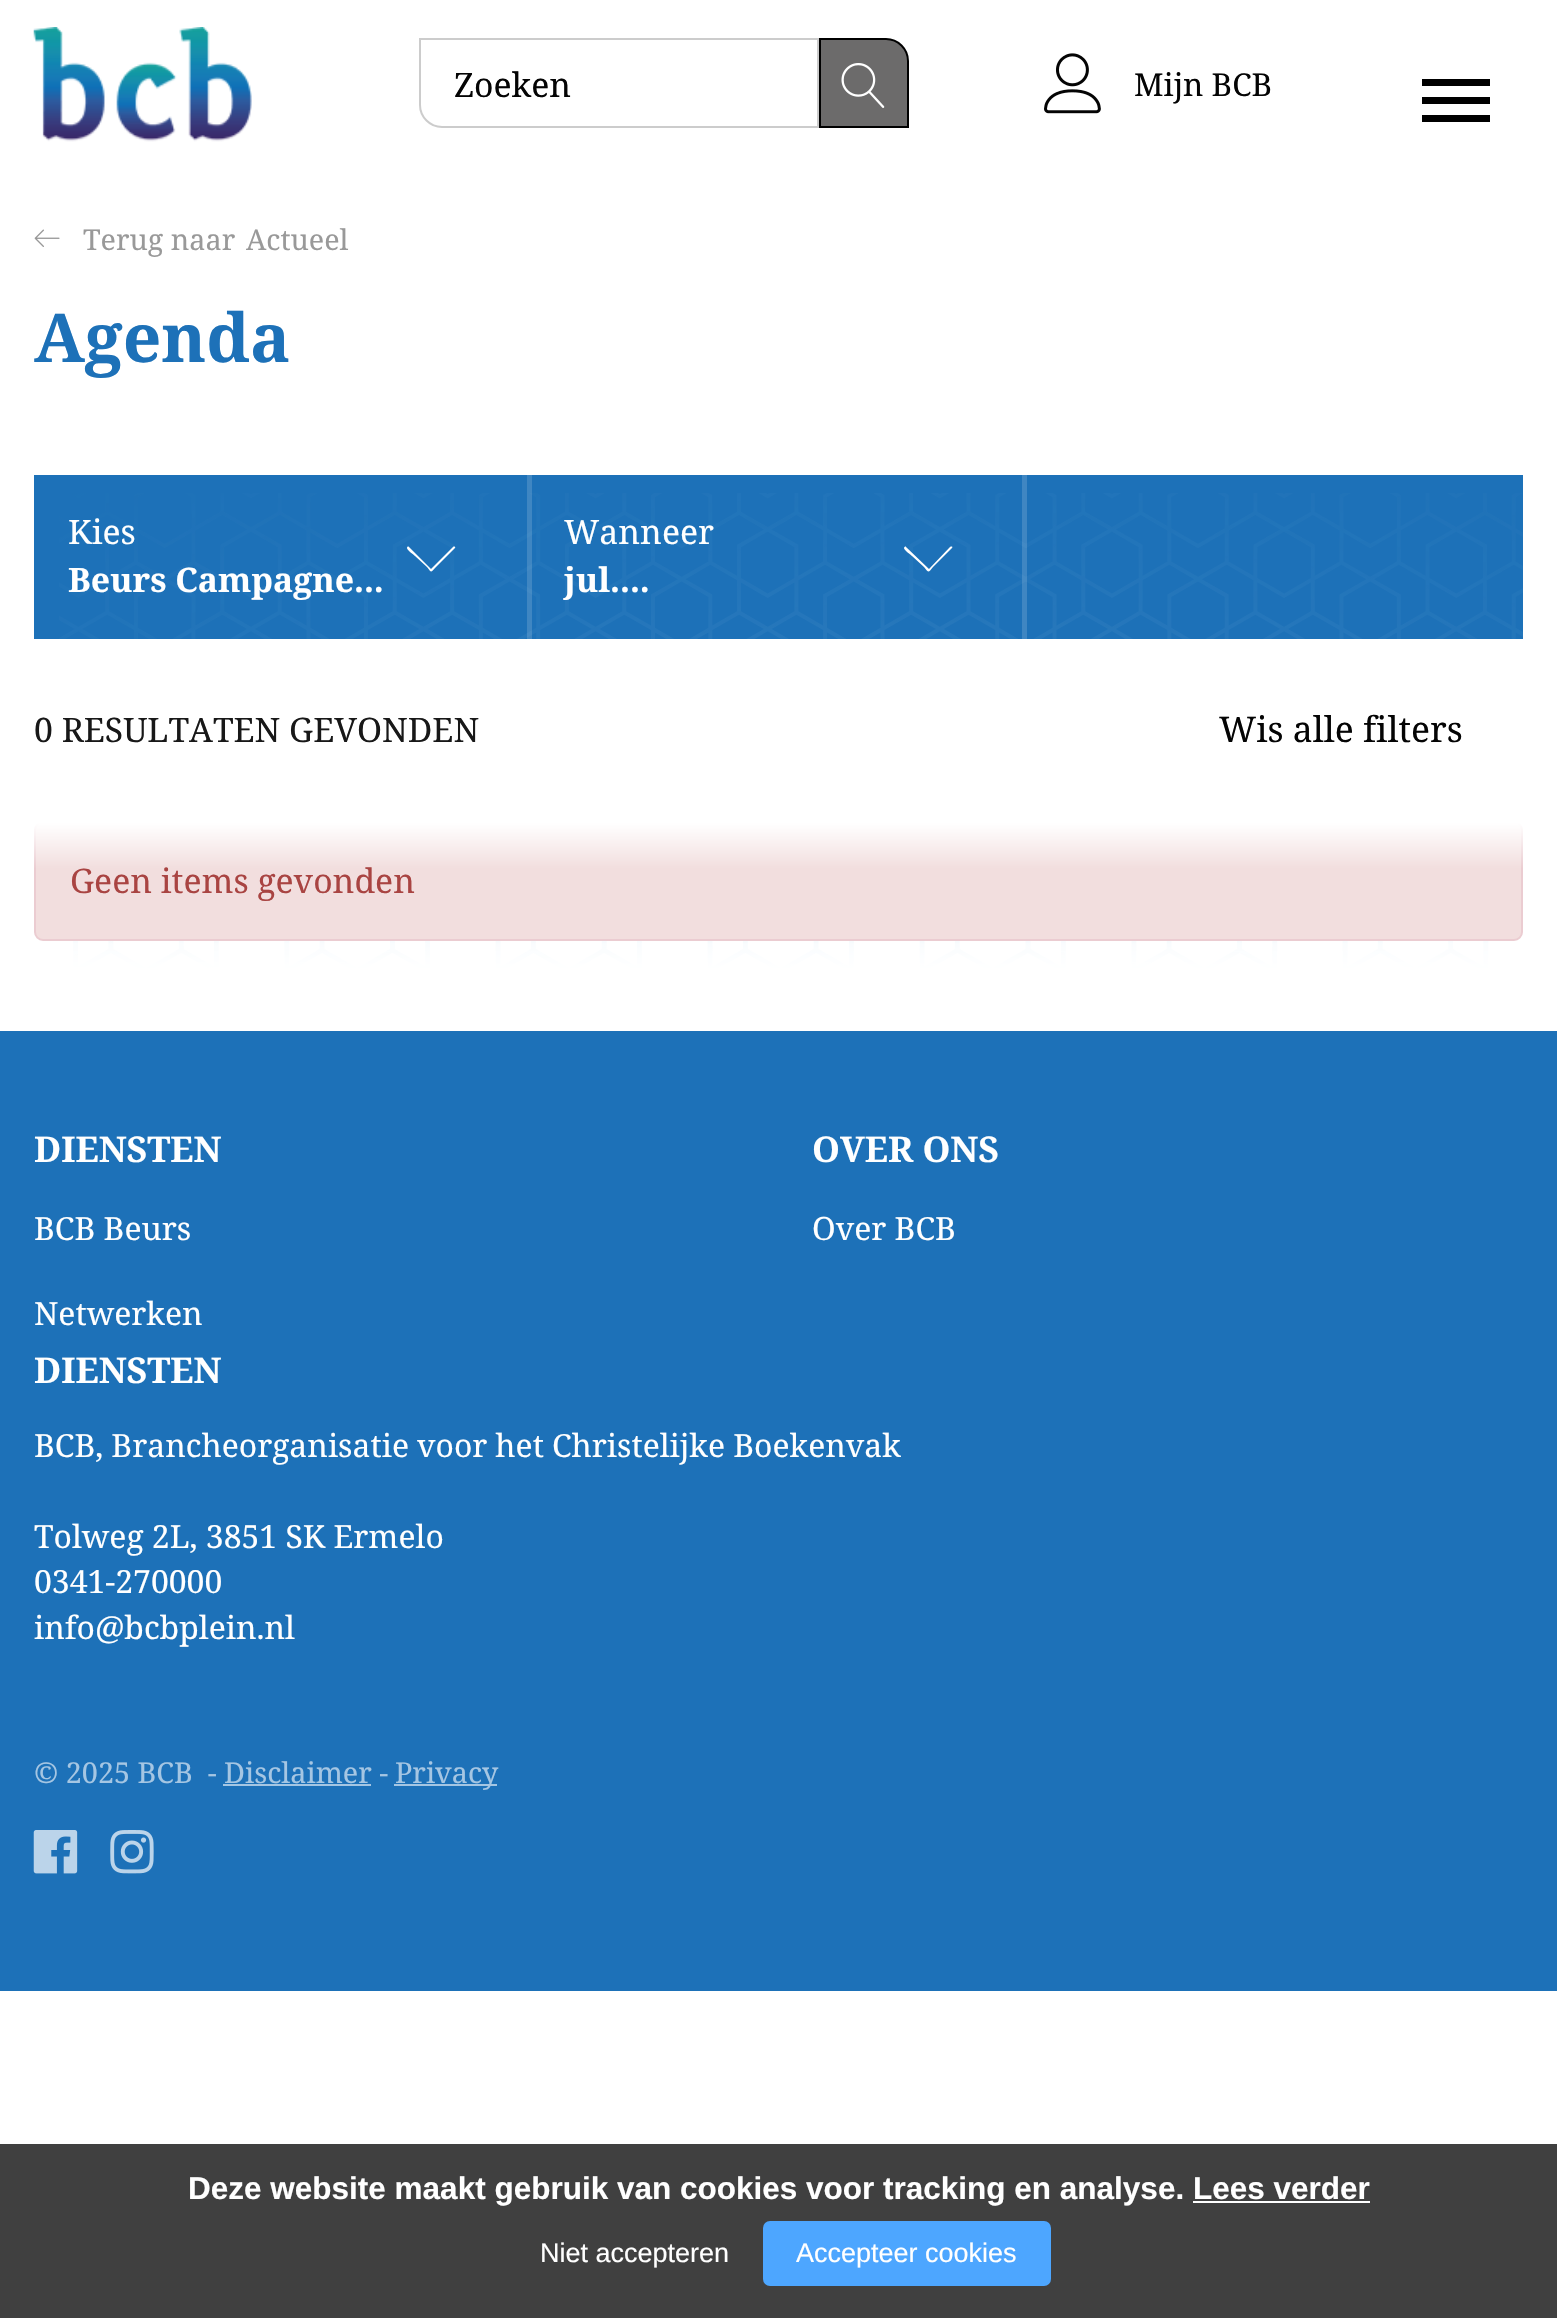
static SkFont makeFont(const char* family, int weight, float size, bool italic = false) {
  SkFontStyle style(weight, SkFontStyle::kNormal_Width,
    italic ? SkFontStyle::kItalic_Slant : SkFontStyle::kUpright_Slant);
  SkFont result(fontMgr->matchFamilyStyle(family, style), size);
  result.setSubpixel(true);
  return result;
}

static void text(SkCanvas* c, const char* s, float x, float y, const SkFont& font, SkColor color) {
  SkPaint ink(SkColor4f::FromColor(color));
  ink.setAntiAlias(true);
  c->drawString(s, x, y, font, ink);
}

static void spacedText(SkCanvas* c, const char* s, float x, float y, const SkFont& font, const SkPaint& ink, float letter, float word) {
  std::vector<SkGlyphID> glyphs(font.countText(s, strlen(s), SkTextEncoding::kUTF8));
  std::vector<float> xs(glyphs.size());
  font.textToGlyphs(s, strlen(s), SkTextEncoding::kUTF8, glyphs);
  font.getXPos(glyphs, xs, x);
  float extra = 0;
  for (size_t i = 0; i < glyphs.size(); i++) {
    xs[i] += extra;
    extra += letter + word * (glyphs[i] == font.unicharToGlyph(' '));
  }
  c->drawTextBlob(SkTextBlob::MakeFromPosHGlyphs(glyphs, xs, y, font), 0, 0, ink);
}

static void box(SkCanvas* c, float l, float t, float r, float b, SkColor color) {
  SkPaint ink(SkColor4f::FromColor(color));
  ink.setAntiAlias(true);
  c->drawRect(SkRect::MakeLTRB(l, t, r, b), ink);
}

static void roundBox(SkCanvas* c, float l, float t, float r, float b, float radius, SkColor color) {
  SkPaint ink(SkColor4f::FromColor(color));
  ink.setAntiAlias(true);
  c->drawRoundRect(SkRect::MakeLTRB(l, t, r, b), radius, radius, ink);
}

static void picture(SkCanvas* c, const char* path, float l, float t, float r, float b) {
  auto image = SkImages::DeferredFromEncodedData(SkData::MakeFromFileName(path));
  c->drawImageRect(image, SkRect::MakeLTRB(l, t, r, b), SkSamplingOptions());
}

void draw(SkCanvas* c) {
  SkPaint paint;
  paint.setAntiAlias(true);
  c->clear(0xffffffff);
  picture(c, "img_01.png", 33, 27, 252, 142);
  paint.setStyle(SkPaint::kStroke_Style);
  paint.setStrokeWidth(2);
  paint.setColor(0xffcccccc);
  c->drawPath(SkPathBuilder().moveTo(420, 39).lineTo(818, 39).lineTo(818, 127).lineTo(442, 127).cubicTo(430, 127, 420, 117, 420, 105).close().detach(), paint);
  SkFont face1 = makeFont("Noto Serif", 400, 33.75f);
  text(c, "Zoeken", 454, 97, face1, 0xff040404);
  paint.setStyle(SkPaint::kFill_Style);
  paint.setColor(0xff6c6b6b);
  c->drawPath(SkPathBuilder().moveTo(820, 39).lineTo(886, 39).cubicTo(898, 39, 908, 49, 908, 61).lineTo(908, 127).lineTo(820, 127).close().detach(), paint);
  paint.setStyle(SkPaint::kStroke_Style);
  paint.setColor(0xff000000);
  c->drawPath(SkPathBuilder().moveTo(820, 39).lineTo(886, 39).cubicTo(898, 39, 908, 49, 908, 61).lineTo(908, 127).lineTo(820, 127).close().detach(), paint);
  picture(c, "img_02.png", 841, 63, 885, 108);
  picture(c, "img_03.png", 1044, 53, 1101, 114);
  SkFont face2 = makeFont("Noto Serif", 400, 31.5f);
  text(c, "Mijn BCB", 1134, 96, face2, 0xff040404);
  box(c, 1422, 79, 1490, 86, 0xff000000);
  box(c, 1422, 97, 1490, 104, 0xff000000);
  box(c, 1422, 115, 1490, 122, 0xff000000);
  picture(c, "img_04.png", 34, 229, 60, 247);
  SkFont face3 = makeFont("Noto Serif", 400, 28.75f);
  text(c, "Terug naar", 83, 250, face3, 0xff999999);
  text(c, "Actueel", 246, 250, face3, 0xff999999);
  SkFont face4 = makeFont("Noto Serif", 700, 67.5f);
  text(c, "Agenda", 34, 362, face4, 0xff1d71b8);
  box(c, 34, 475, 1523, 639, 0xff1d71b8);
  picture(c, "img_05.png", 59, 493, 1523, 639);
  box(c, 527, 475, 532, 639, 0x26ffffff);
  text(c, "Kies", 68, 544, face1, 0xffffffff);
  paint.setStyle(SkPaint::kFill_Style);
  paint.setColor(0xffffffff);
  c->drawPath(SkPathBuilder().moveTo(407, 548).cubicTo(407, 547, 408, 546, 409, 547).lineTo(431, 569).lineTo(453, 547).cubicTo(454, 546, 456, 547, 455, 548).lineTo(436, 567).cubicTo(430, 573, 432, 573, 427, 567).lineTo(415, 556).cubicTo(414, 555, 407, 550, 407, 548).close().detach(), paint);
  SkFont face5 = makeFont("Noto Serif", 700, 33.75f);
  text(c, "Beurs Campagne...", 68, 592, face5, 0xffffffff);
  box(c, 1022, 475, 1027, 639, 0x26ffffff);
  text(c, "Wanneer", 564, 544, face1, 0xffffffff);
  c->drawPath(SkPathBuilder().moveTo(904, 548).cubicTo(904, 547, 906, 546, 906, 547).lineTo(929, 569).lineTo(950, 547).cubicTo(952, 546, 953, 547, 952, 548).lineTo(933, 567).cubicTo(928, 573, 929, 573, 924, 567).lineTo(912, 556).cubicTo(911, 555, 904, 550, 904, 548).close().detach(), paint);
  text(c, "jul....", 564, 592, face5, 0xffffffff);
  text(c, "0 RESULTATEN GEVONDEN", 34, 742, face1, 0xff181818);
  SkFont face6 = makeFont("Noto Serif", 400, 35.5f);
  text(c, "Wis alle filters", 1219, 742, face6, 0xff040404);
  paint.setColor(0xfff2dede);
  c->drawRoundRect(SkRect::MakeLTRB(35, 822, 1522, 940), 8, 8, paint);
  paint.setStyle(SkPaint::kStroke_Style);
  paint.setColor(0xffebccd1);
  c->drawRoundRect(SkRect::MakeLTRB(35, 822, 1522, 940), 8, 8, paint);
  text(c, "Geen items gevonden", 70, 893, face1, 0xffa94442);
  paint.setStyle(SkPaint::kFill_Style);
  {
    const SkColor colors[] = {0x00ffffff, 0x03ffffff, 0xffffffff, 0xffffffff};
    const float stops[] = {0, 0.01f, 0.98f, 1};
    const SkPoint ends[] = {{779, 869}, {779, 821}};
    paint.setShader(SkGradientShader::MakeLinear(ends, colors, stops, 4, SkTileMode::kClamp));
    paint.setAlpha(255);
  }
  c->drawRect(SkRect::MakeLTRB(34, 821, 1523, 868), paint);
  picture(c, "img_06.png", 67, 941, 1495, 973);
  {
    const SkColor colors[] = {0x00ffffff, 0x03ffffff, 0xffffffff, 0xffffffff};
    const float stops[] = {0, 0.01f, 0.98f, 1};
    const SkPoint ends[] = {{779, 929}, {779, 974}};
    paint.setShader(SkGradientShader::MakeLinear(ends, colors, stops, 4, SkTileMode::kClamp));
    paint.setAlpha(255);
  }
  c->drawRect(SkRect::MakeLTRB(67, 943, 1495, 973), paint);
  box(c, 0, 1031, 1557, 1991, 0xff1d71b8);
  SkFont face7 = makeFont("Noto Serif", 700, 35.5f);
  text(c, "DIENSTEN", 34, 1162, face7, 0xffffffff);
  SkFont face8 = makeFont("Noto Serif", 400, 31.9f);
  text(c, "BCB Beurs", 34, 1240, face8, 0xffffffff);
  text(c, "Netwerken", 34, 1325, face8, 0xffffffff);
  text(c, "OVER ONS", 812, 1162, face7, 0xffffffff);
  text(c, "Over BCB", 812, 1240, face8, 0xffffffff);
  text(c, "DIENSTEN", 34, 1383, face7, 0xffffffff);
  paint.setShader(nullptr);
  paint.setColor(0xffffffff);
  spacedText(c, "BCB, Brancheorganisatie voor het Christelijke Boekenvak", 34, 1457, face8, paint, 0, -0.25f);
  text(c, "Tolweg 2L, 3851 SK Ermelo", 34, 1548, face8, 0xffffffff);
  text(c, "0341-270000", 34, 1593, face8, 0xffffffff);
  text(c, "info@bcbplein.nl", 34, 1639, face8, 0xffffffff);
  text(c, "© 2025 BCB  - Disclaimer -", 34, 1783, face3, 0xffa5c6e3);
  box(c, 394, 1784, 497, 1786, 0xffa5c6e3);
  text(c, "Privacy", 395, 1783, face3, 0xffa5c6e3);
  box(c, 223, 1784, 371, 1786, 0xffa5c6e3);
  picture(c, "img_07.png", 33, 1830, 78, 1874);
  picture(c, "img_08.png", 110, 1830, 154, 1874);
  box(c, 0, 2144, 1557, 2318, 0xff404040);
  SkFont face9 = makeFont("Liberation Sans", 700, 31.5f);
  text(c, "Deze website maakt gebruik van cookies voor tracking en analyse. Lees verder", 188, 2199, face9, 0xffffffff);
  box(c, 1193, 2201, 1370, 2203, 0xffffffff);
  SkFont face10 = makeFont("Liberation Sans", 400, 27);
  text(c, "Niet accepteren", 540, 2262, face10, 0xffffffff);
  roundBox(c, 763, 2221, 1051, 2286, 7, 0xff4da6ff);
  text(c, "Accepteer cookies", 796, 2262, face10, 0xffffffff);
}
